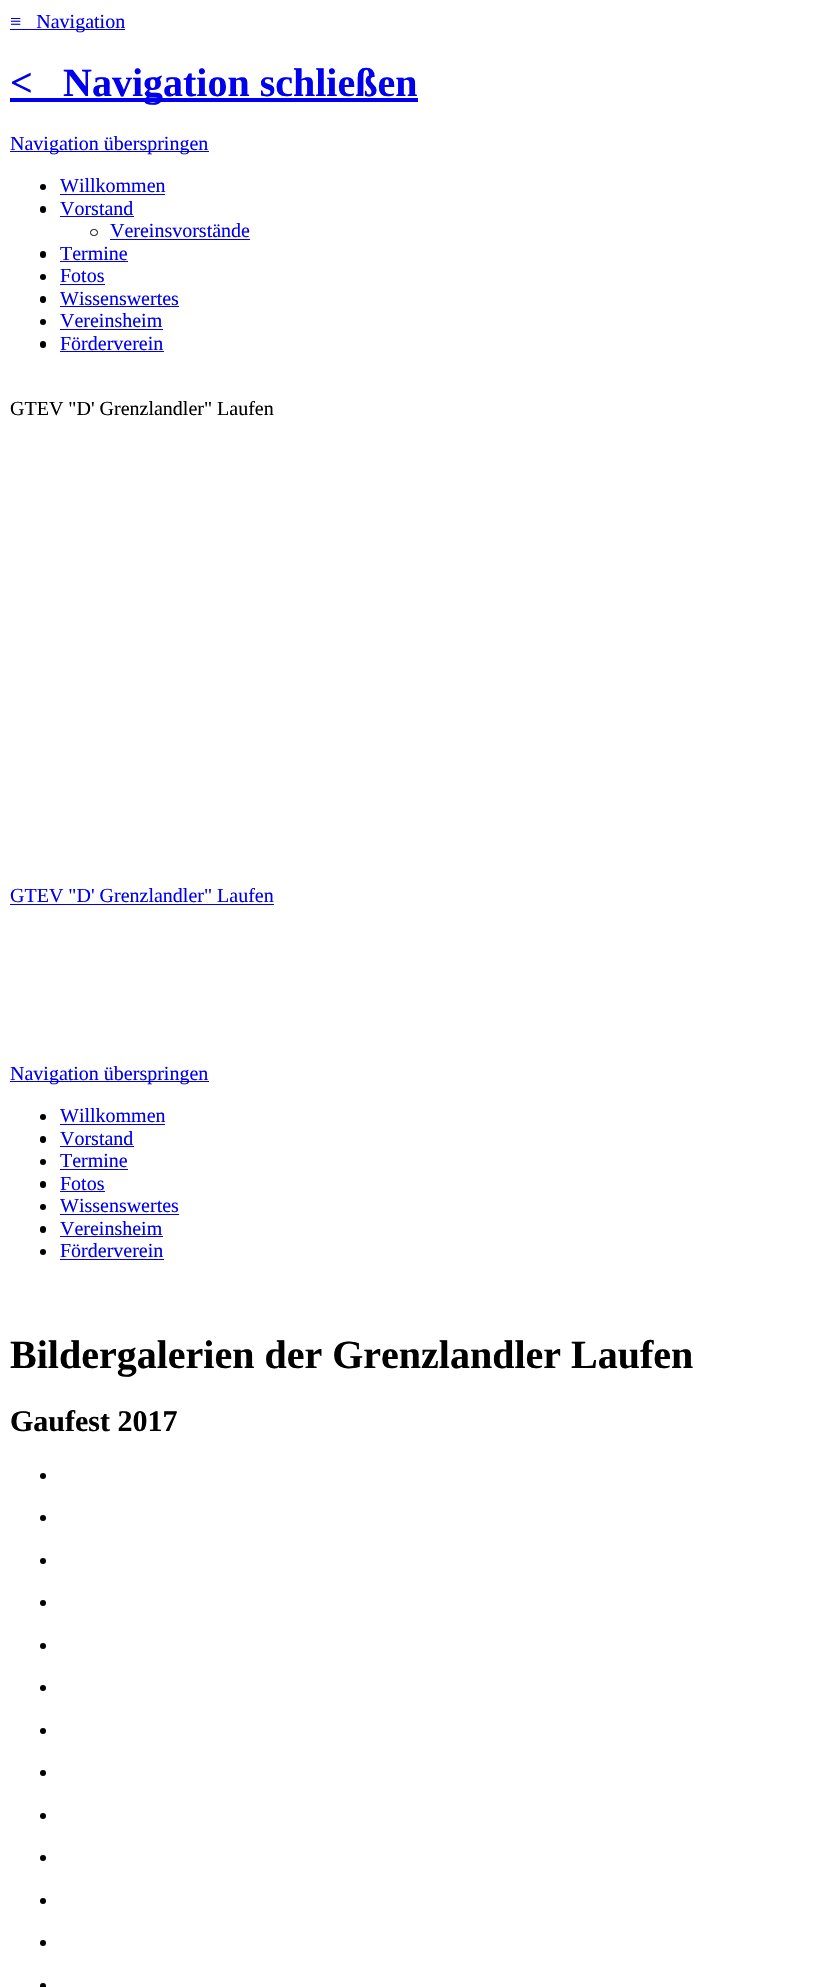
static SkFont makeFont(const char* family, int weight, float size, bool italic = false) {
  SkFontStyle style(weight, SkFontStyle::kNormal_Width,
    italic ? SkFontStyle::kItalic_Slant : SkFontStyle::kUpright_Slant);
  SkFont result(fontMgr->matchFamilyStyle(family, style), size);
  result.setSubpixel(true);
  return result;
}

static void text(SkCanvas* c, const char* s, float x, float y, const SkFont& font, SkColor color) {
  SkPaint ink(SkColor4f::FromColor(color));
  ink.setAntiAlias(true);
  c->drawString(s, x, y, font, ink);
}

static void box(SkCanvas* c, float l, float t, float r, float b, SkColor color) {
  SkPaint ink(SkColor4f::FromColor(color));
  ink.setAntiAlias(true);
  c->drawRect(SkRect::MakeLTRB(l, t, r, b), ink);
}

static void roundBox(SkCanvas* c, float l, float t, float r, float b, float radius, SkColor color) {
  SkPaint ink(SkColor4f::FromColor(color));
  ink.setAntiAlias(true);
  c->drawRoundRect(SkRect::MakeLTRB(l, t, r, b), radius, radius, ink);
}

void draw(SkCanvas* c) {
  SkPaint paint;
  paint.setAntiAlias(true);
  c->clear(0xffffffff);
  box(c, 10, 29, 125, 30, 0xff0000ee);
  SkFont face1 = makeFont("Liberation Serif", 400, 20);
  text(c, "≡   Navigation", 10, 28, face1, 0xff0000ee);
  SkFont face2 = makeFont("Liberation Serif", 700, 40);
  text(c, "<", 10, 96, face2, 0xff0000ee);
  box(c, 10, 98, 418, 102, 0xff0000ee);
  text(c, "Navigation schließen", 63, 96, face2, 0xff0000ee);
  box(c, 10, 151, 209, 152, 0xff0000ee);
  text(c, "Navigation überspringen", 10, 150, face1, 0xff0000ee);
  paint.setColor(0xff000000);
  c->drawCircle(43, 187, 3, paint);
  text(c, "Willkommen", 60, 192, face1, 0xff0000ee);
  box(c, 60, 194, 165, 195, 0xff0000ee);
  roundBox(c, 40, 206, 46, 213, 3, 0xff000000);
  text(c, "Vorstand", 60, 215, face1, 0xff0000ee);
  box(c, 60, 216, 134, 217, 0xff0000ee);
  paint.setStyle(SkPaint::kStroke_Style);
  paint.setStrokeWidth(1);
  c->drawRoundRect(SkRect::MakeLTRB(90.5f, 229.5f, 97.5f, 235.5f), 3, 3, paint);
  text(c, "Vereinsvorstände", 110, 237, face1, 0xff0000ee);
  box(c, 110, 239, 250, 240, 0xff0000ee);
  roundBox(c, 40, 251, 46, 258, 3, 0xff000000);
  text(c, "Termine", 60, 260, face1, 0xff0000ee);
  box(c, 60, 261, 128, 262, 0xff0000ee);
  paint.setStyle(SkPaint::kFill_Style);
  c->drawCircle(43, 277, 3, paint);
  text(c, "Fotos", 60, 282, face1, 0xff0000ee);
  box(c, 60, 284, 105, 285, 0xff0000ee);
  roundBox(c, 40, 296, 46, 303, 3, 0xff000000);
  text(c, "Wissenswertes", 60, 305, face1, 0xff0000ee);
  box(c, 60, 306, 179, 307, 0xff0000ee);
  c->drawCircle(43, 322, 3, paint);
  text(c, "Vereinsheim", 60, 327, face1, 0xff0000ee);
  box(c, 60, 329, 163, 330, 0xff0000ee);
  roundBox(c, 40, 341, 46, 348, 3, 0xff000000);
  text(c, "Förderverein", 60, 350, face1, 0xff0000ee);
  box(c, 60, 351, 164, 352, 0xff0000ee);
  text(c, "GTEV \"D' Grenzlandler\" Laufen", 10, 415, face1, 0xff000000);
  text(c, "GTEV \"D' Grenzlandler\" Laufen", 10, 902, face1, 0xff0000ee);
  box(c, 10, 904, 274, 905, 0xff0000ee);
  box(c, 10, 1081, 209, 1082, 0xff0000ee);
  text(c, "Navigation überspringen", 10, 1080, face1, 0xff0000ee);
  c->drawCircle(43, 1117, 3, paint);
  text(c, "Willkommen", 60, 1122, face1, 0xff0000ee);
  box(c, 60, 1124, 165, 1125, 0xff0000ee);
  roundBox(c, 40, 1136, 46, 1143, 3, 0xff000000);
  text(c, "Vorstand", 60, 1145, face1, 0xff0000ee);
  box(c, 60, 1146, 134, 1147, 0xff0000ee);
  c->drawCircle(43, 1162, 3, paint);
  text(c, "Termine", 60, 1167, face1, 0xff0000ee);
  box(c, 60, 1169, 128, 1170, 0xff0000ee);
  roundBox(c, 40, 1181, 46, 1188, 3, 0xff000000);
  text(c, "Fotos", 60, 1190, face1, 0xff0000ee);
  box(c, 60, 1191, 105, 1192, 0xff0000ee);
  c->drawCircle(43, 1207, 3, paint);
  text(c, "Wissenswertes", 60, 1212, face1, 0xff0000ee);
  box(c, 60, 1214, 179, 1215, 0xff0000ee);
  roundBox(c, 40, 1226, 46, 1233, 3, 0xff000000);
  text(c, "Vereinsheim", 60, 1235, face1, 0xff0000ee);
  box(c, 60, 1236, 163, 1237, 0xff0000ee);
  c->drawCircle(43, 1252, 3, paint);
  text(c, "Förderverein", 60, 1257, face1, 0xff0000ee);
  box(c, 60, 1259, 164, 1260, 0xff0000ee);
  text(c, "Bildergalerien der Grenzlandler Laufen", 10, 1368, face2, 0xff000000);
  SkFont face3 = makeFont("Liberation Serif", 700, 30);
  text(c, "Gaufest 2017", 10, 1431, face3, 0xff000000);
  c->drawCircle(43, 1476, 3, paint);
  c->drawCircle(43, 1518, 3, paint);
  c->drawCircle(43, 1561, 3, paint);
  c->drawCircle(43, 1603, 3, paint);
  c->drawCircle(43, 1646, 3, paint);
  c->drawCircle(43, 1688, 3, paint);
  c->drawCircle(43, 1731, 3, paint);
  c->drawCircle(43, 1773, 3, paint);
  c->drawCircle(43, 1816, 3, paint);
  c->drawCircle(43, 1858, 3, paint);
  c->drawCircle(43, 1901, 3, paint);
  c->drawCircle(43, 1943, 3, paint);
  c->drawCircle(43, 1986, 3, paint);
}
